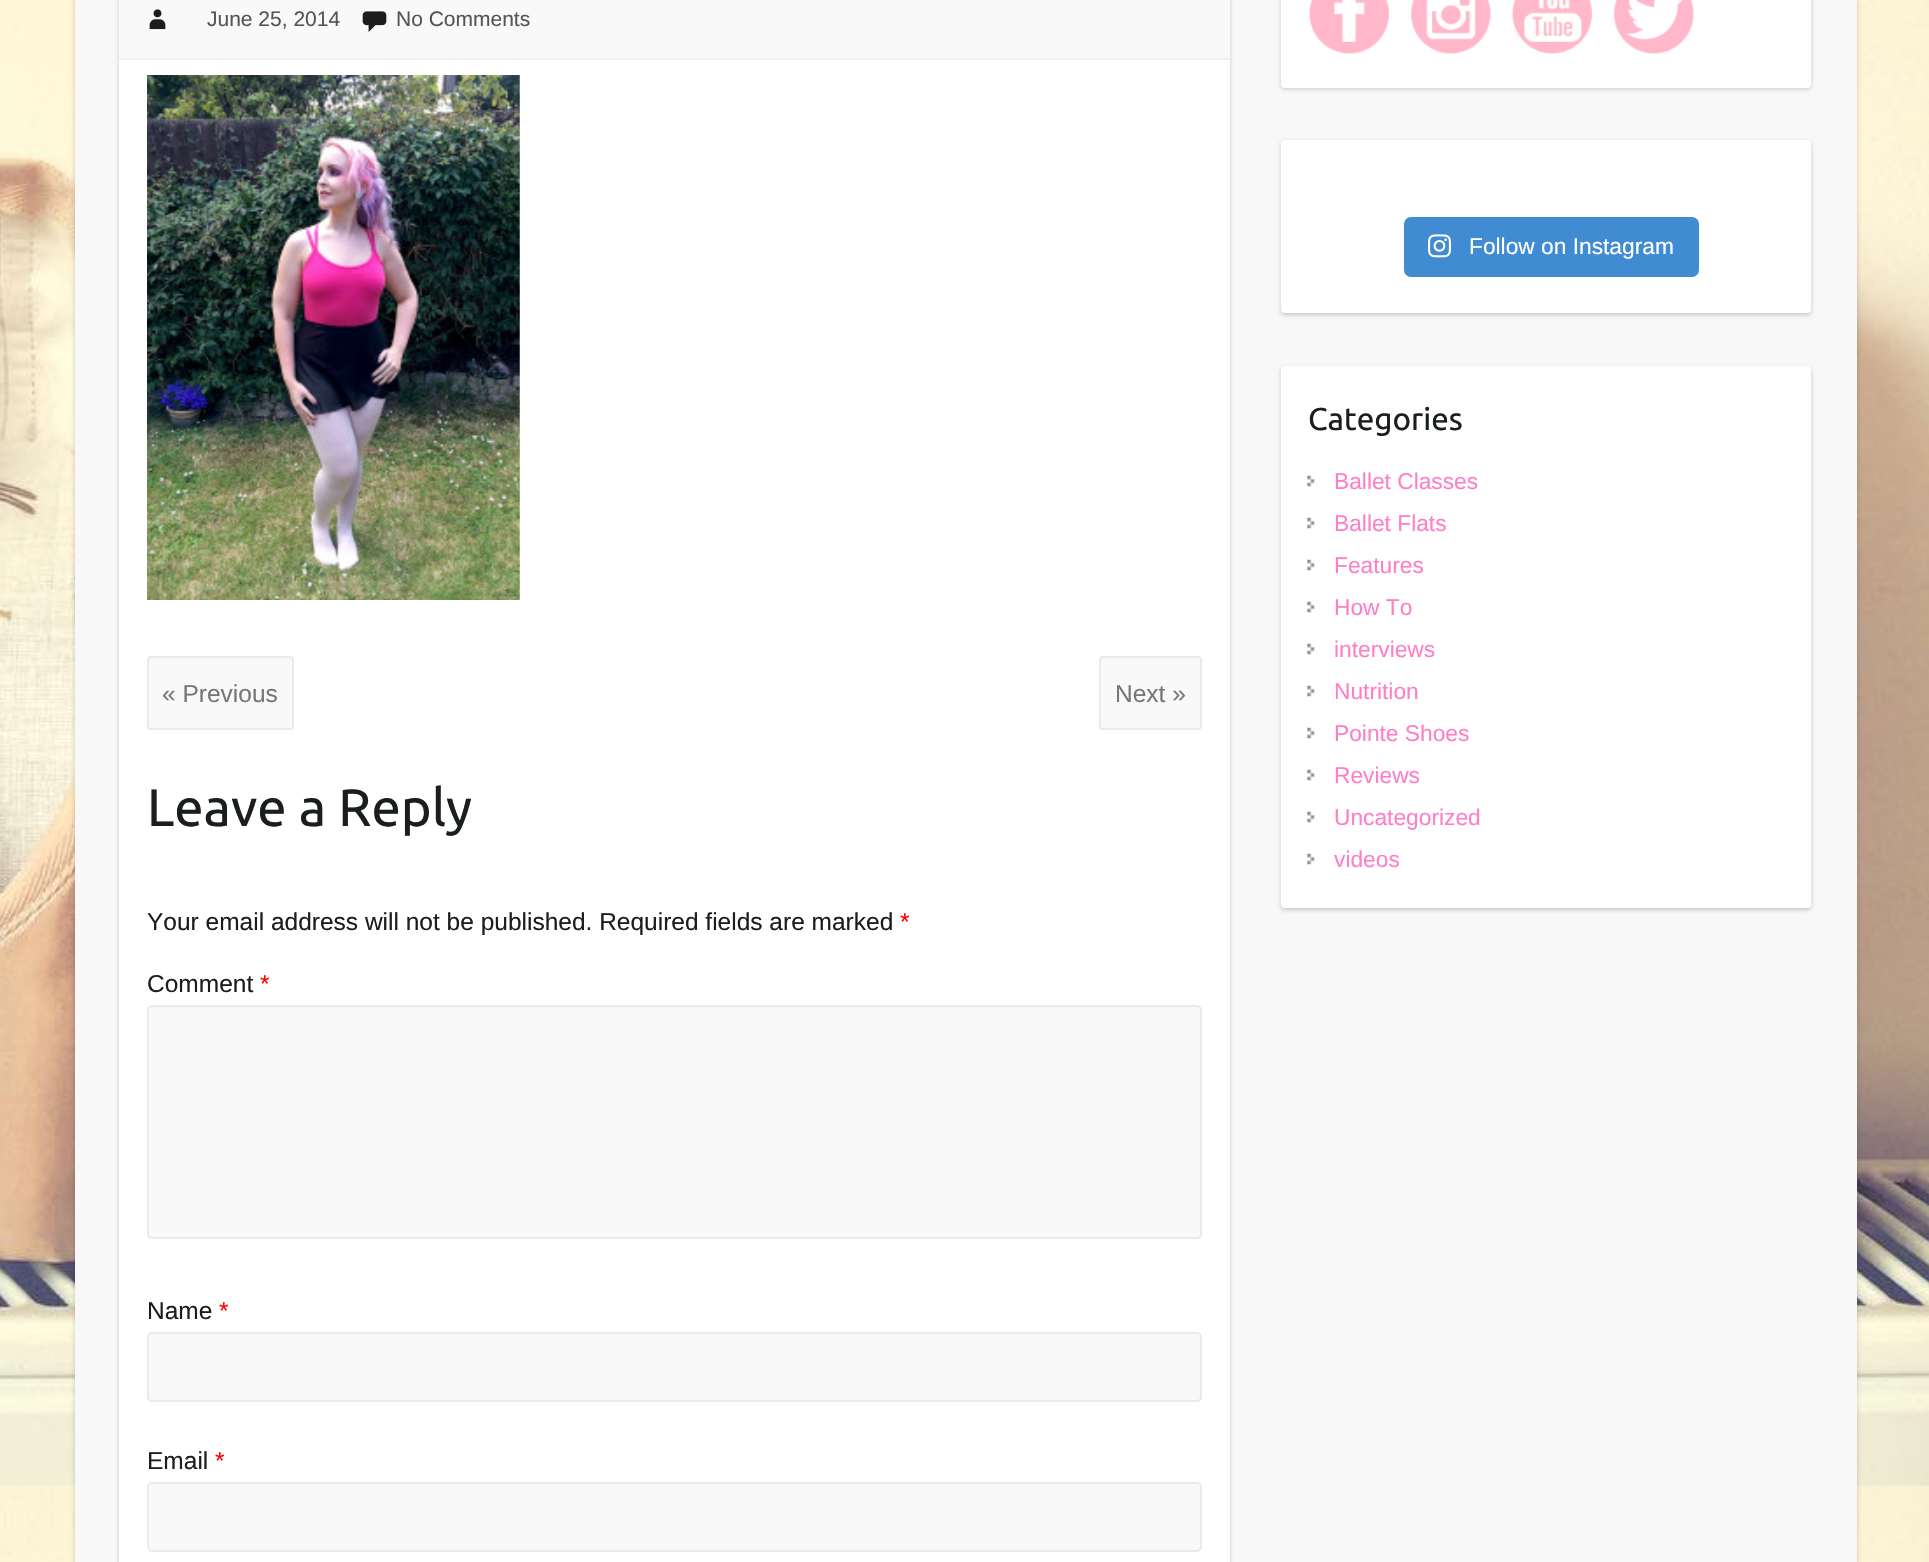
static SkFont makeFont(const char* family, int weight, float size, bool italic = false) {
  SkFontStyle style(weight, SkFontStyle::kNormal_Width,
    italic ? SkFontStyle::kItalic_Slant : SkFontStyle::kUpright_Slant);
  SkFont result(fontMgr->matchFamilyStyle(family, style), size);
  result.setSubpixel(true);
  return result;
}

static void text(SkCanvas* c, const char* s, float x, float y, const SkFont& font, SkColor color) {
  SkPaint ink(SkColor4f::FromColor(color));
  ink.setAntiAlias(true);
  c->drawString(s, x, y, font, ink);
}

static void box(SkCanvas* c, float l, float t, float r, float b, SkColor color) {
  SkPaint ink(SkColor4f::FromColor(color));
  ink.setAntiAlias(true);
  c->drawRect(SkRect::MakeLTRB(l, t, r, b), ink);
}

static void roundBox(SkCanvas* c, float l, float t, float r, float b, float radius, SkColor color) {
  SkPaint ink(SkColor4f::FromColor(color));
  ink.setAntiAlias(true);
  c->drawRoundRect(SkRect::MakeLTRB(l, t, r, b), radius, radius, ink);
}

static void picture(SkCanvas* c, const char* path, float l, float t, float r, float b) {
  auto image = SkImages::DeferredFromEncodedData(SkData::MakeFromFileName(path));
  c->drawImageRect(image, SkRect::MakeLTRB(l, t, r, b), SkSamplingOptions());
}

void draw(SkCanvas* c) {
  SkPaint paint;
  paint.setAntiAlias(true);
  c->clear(0xffffffff);
  picture(c, "img_01.png", 0, 0, 1929, 1562);
  paint.setColor(0x33000000);
  paint.setMaskFilter(SkMaskFilter::MakeBlur(kNormal_SkBlurStyle, 2));
  c->drawRoundRect(SkRect::MakeLTRB(75, -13, 1857, 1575), 7, 7, paint);
  paint.setMaskFilter(nullptr);
  box(c, 75, 0, 1857, 1562, 0xfff8f8f8);
  paint.setMaskFilter(SkMaskFilter::MakeBlur(kNormal_SkBlurStyle, 2));
  c->drawRect(SkRect::MakeLTRB(119, -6, 1230, 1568), paint);
  paint.setMaskFilter(nullptr);
  box(c, 119, 60, 1230, 1562, 0xffffffff);
  box(c, 119, 0, 1230, 58, 0xfff9f9f9);
  box(c, 119, 58, 1230, 60, 0xfff0f0f0);
  picture(c, "img_02.png", 149, 9, 166, 30);
  SkFont face1 = makeFont("Liberation Sans", 400, 21);
  text(c, "June 25, 2014", 207, 26, face1, 0xff555555);
  picture(c, "img_03.png", 362, 11, 387, 32);
  text(c, "No Comments", 396, 26, face1, 0xff555555);
  picture(c, "img_04.png", 147, 75, 520, 600);
  paint.setColor(0xfff9f9f9);
  c->drawRoundRect(SkRect::MakeLTRB(148, 657, 293, 729), 3, 3, paint);
  paint.setStyle(SkPaint::kStroke_Style);
  paint.setStrokeWidth(2);
  paint.setColor(0xffeaeaea);
  c->drawRoundRect(SkRect::MakeLTRB(148, 657, 293, 729), 3, 3, paint);
  SkFont face2 = makeFont("Liberation Sans", 400, 24.5f);
  text(c, "« Previous", 162, 702, face2, 0xff777777);
  paint.setStyle(SkPaint::kFill_Style);
  paint.setColor(0xfff9f9f9);
  c->drawRoundRect(SkRect::MakeLTRB(1100, 657, 1201, 729), 3, 3, paint);
  paint.setStyle(SkPaint::kStroke_Style);
  paint.setColor(0xffeaeaea);
  c->drawRoundRect(SkRect::MakeLTRB(1100, 657, 1201, 729), 3, 3, paint);
  text(c, "Next »", 1115, 702, face2, 0xff777777);
  SkFont face3 = makeFont("Ubuntu", 400, 52.5f);
  text(c, "Leave a Reply", 147, 826, face3, 0xff1b1e1f);
  text(c, "Your email address will not be published. Required fields are marked", 147, 930, face2, 0xff1b1e1f);
  text(c, "*", 900, 930, face2, 0xffff0000);
  text(c, "Comment", 147, 992, face2, 0xff1b1e1f);
  text(c, "*", 260, 992, face2, 0xffff0000);
  paint.setStyle(SkPaint::kFill_Style);
  paint.setColor(0xfff9f9f9);
  c->drawRoundRect(SkRect::MakeLTRB(148, 1006, 1201, 1238), 4, 4, paint);
  paint.setStyle(SkPaint::kStroke_Style);
  paint.setColor(0xffeaeaea);
  c->drawRoundRect(SkRect::MakeLTRB(148, 1006, 1201, 1238), 4, 4, paint);
  text(c, "Name", 147, 1319, face2, 0xff1b1e1f);
  text(c, "*", 219, 1319, face2, 0xffff0000);
  paint.setStyle(SkPaint::kFill_Style);
  paint.setColor(0xfff9f9f9);
  c->drawRoundRect(SkRect::MakeLTRB(148, 1333, 1201, 1401), 4, 4, paint);
  paint.setStyle(SkPaint::kStroke_Style);
  paint.setColor(0xffeaeaea);
  c->drawRoundRect(SkRect::MakeLTRB(148, 1333, 1201, 1401), 4, 4, paint);
  text(c, "Email", 147, 1469, face2, 0xff1b1e1f);
  text(c, "*", 215, 1469, face2, 0xffff0000);
  paint.setStyle(SkPaint::kFill_Style);
  paint.setColor(0xfff9f9f9);
  c->drawRoundRect(SkRect::MakeLTRB(148, 1483, 1201, 1551), 4, 4, paint);
  paint.setStyle(SkPaint::kStroke_Style);
  paint.setColor(0xffeaeaea);
  c->drawRoundRect(SkRect::MakeLTRB(148, 1483, 1201, 1551), 4, 4, paint);
  paint.setStyle(SkPaint::kFill_Style);
  paint.setColor(0x33000000);
  paint.setMaskFilter(SkMaskFilter::MakeBlur(kNormal_SkBlurStyle, 2));
  c->drawRoundRect(SkRect::MakeLTRB(1281, -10, 1811, 89), 4, 4, paint);
  paint.setMaskFilter(nullptr);
  roundBox(c, 1281, -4, 1811, 88, 4, 0xffffffff);
  picture(c, "img_05.png", 1309, 0, 1390, 54);
  picture(c, "img_06.png", 1411, 0, 1491, 54);
  picture(c, "img_07.png", 1512, 0, 1593, 54);
  picture(c, "img_08.png", 1614, 0, 1694, 54);
  paint.setMaskFilter(SkMaskFilter::MakeBlur(kNormal_SkBlurStyle, 2));
  c->drawRoundRect(SkRect::MakeLTRB(1281, 142, 1811, 315), 4, 4, paint);
  paint.setMaskFilter(nullptr);
  roundBox(c, 1281, 140, 1811, 313, 4, 0xffffffff);
  roundBox(c, 1404, 217, 1699, 277, 7, 0xff408bd1);
  picture(c, "img_09.png", 1428, 234, 1451, 258);
  SkFont face4 = makeFont("Liberation Sans", 400, 22.75f);
  text(c, "Follow on Instagram", 1469, 254, face4, 0xffffffff);
  paint.setMaskFilter(SkMaskFilter::MakeBlur(kNormal_SkBlurStyle, 2));
  c->drawRoundRect(SkRect::MakeLTRB(1281, 368, 1811, 910), 4, 4, paint);
  paint.setMaskFilter(nullptr);
  roundBox(c, 1281, 366, 1811, 908, 4, 0xffffffff);
  SkFont face5 = makeFont("Ubuntu", 400, 31.5f);
  text(c, "Categories", 1308, 430, face5, 0xff1b1e1f);
  picture(c, "img_10.png", 1307, 475, 1315, 487);
  text(c, "Ballet Classes", 1334, 489, face4, 0xffff7fc7);
  picture(c, "img_10.png", 1307, 517, 1315, 529);
  text(c, "Ballet Flats", 1334, 531, face4, 0xffff7fc7);
  picture(c, "img_10.png", 1307, 559, 1315, 571);
  text(c, "Features", 1334, 573, face4, 0xffff7fc7);
  picture(c, "img_10.png", 1307, 601, 1315, 613);
  text(c, "How To", 1334, 615, face4, 0xffff7fc7);
  picture(c, "img_10.png", 1307, 643, 1315, 655);
  text(c, "interviews", 1334, 657, face4, 0xffff7fc7);
  picture(c, "img_10.png", 1307, 685, 1315, 697);
  text(c, "Nutrition", 1334, 699, face4, 0xffff7fc7);
  picture(c, "img_10.png", 1307, 727, 1315, 739);
  text(c, "Pointe Shoes", 1334, 741, face4, 0xffff7fc7);
  picture(c, "img_10.png", 1307, 769, 1315, 781);
  text(c, "Reviews", 1334, 783, face4, 0xffff7fc7);
  picture(c, "img_10.png", 1307, 811, 1315, 823);
  text(c, "Uncategorized", 1334, 825, face4, 0xffff7fc7);
  picture(c, "img_10.png", 1307, 853, 1315, 865);
  text(c, "videos", 1334, 867, face4, 0xffff7fc7);
}
